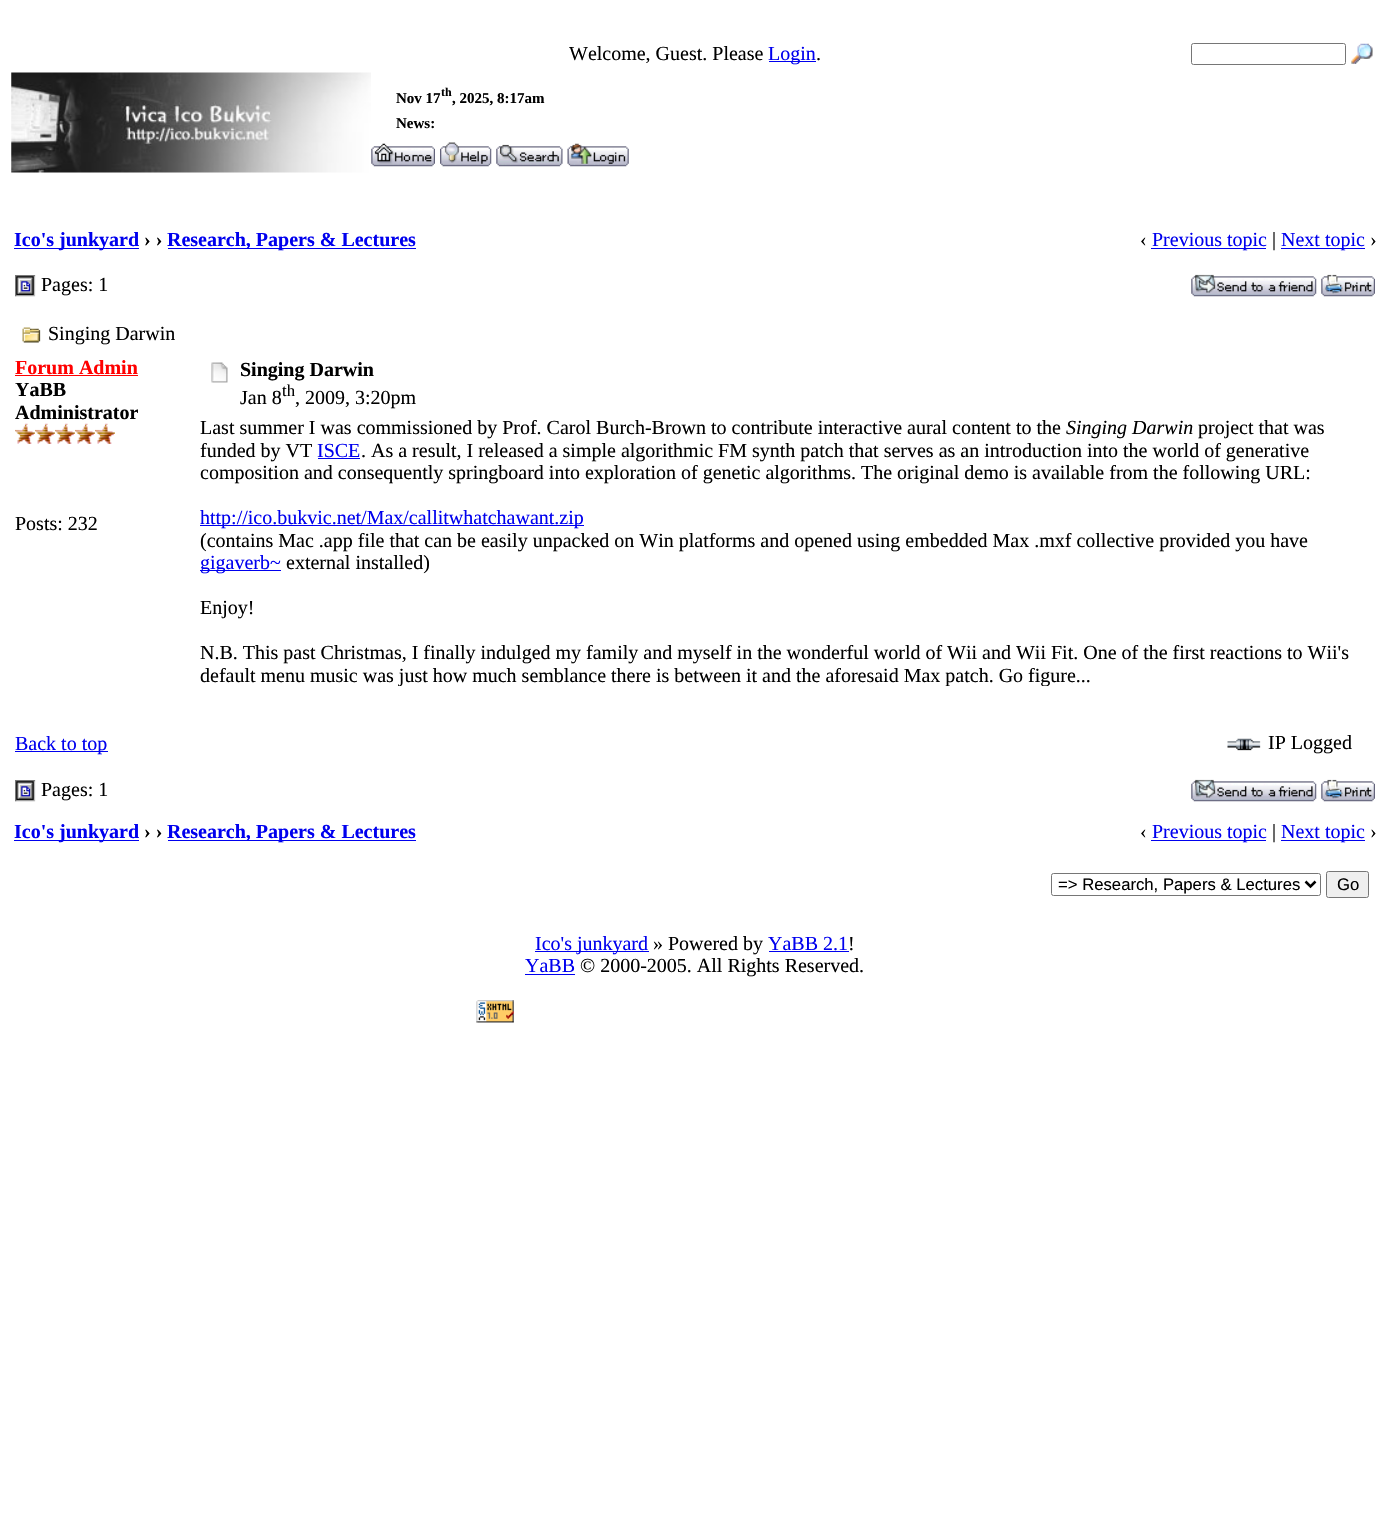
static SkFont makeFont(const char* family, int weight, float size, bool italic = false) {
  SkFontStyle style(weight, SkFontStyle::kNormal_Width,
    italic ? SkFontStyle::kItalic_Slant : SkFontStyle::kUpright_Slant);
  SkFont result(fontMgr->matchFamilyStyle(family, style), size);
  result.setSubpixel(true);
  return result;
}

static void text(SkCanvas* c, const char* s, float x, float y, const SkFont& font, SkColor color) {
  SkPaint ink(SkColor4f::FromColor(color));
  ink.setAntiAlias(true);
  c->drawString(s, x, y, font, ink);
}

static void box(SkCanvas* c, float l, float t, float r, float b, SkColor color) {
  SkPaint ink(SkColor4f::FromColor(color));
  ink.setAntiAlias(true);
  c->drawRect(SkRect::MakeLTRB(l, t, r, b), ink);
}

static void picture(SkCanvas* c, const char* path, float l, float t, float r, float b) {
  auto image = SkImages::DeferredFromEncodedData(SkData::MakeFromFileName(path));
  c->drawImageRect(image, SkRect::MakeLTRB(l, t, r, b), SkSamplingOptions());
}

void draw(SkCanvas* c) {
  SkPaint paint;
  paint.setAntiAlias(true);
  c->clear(0xffffffff);
  SkFont face1 = makeFont("Liberation Serif", 400, 20);
  text(c, "Welcome, Guest. Please", 569, 60, face1, 0xff000000);
  box(c, 769, 61, 816, 62, 0xff0000ee);
  text(c, "Login", 768, 60, face1, 0xff0000ee);
  text(c, ".", 816, 60, face1, 0xff000000);
  paint.setStyle(SkPaint::kStroke_Style);
  paint.setStrokeWidth(1);
  paint.setColor(0xff767676);
  c->drawRoundRect(SkRect::MakeLTRB(1191.5f, 43.5f, 1345.5f, 64.5f), 2, 2, paint);
  picture(c, "img_01.png", 1351, 43, 1373, 64);
  picture(c, "img_02.png", 11, 72, 371, 173);
  SkFont face2 = makeFont("Liberation Serif", 700, 12);
  text(c, "th", 441, 96, face2, 0xff000000);
  SkFont face3 = makeFont("Liberation Serif", 700, 15);
  text(c, "Nov 17", 396, 103, face3, 0xff000000);
  text(c, ", 2025, 8:17am", 452, 103, face3, 0xff000000);
  text(c, "News:", 396, 128, face3, 0xff000000);
  picture(c, "img_03.png", 371, 143, 435, 167);
  picture(c, "img_04.png", 440, 142, 492, 167);
  picture(c, "img_05.png", 496, 144, 563, 167);
  picture(c, "img_06.png", 567, 143, 629, 167);
  box(c, 14, 248, 139, 249, 0xff0000ee);
  SkFont face4 = makeFont("Liberation Serif", 700, 20);
  text(c, "Ico's junkyard", 14, 246, face4, 0xff0000ee);
  text(c, "› ›", 144, 246, face4, 0xff000000);
  box(c, 168, 248, 416, 249, 0xff0000ee);
  text(c, "Research, Papers & Lectures", 167, 246, face4, 0xff0000ee);
  text(c, "‹", 1140, 246, face1, 0xff000000);
  box(c, 1151, 248, 1266, 249, 0xff0000ee);
  text(c, "Previous topic", 1152, 246, face1, 0xff0000ee);
  text(c, "|", 1272, 246, face1, 0xff000000);
  box(c, 1281, 248, 1365, 249, 0xff0000ee);
  text(c, "Next topic", 1281, 246, face1, 0xff0000ee);
  text(c, "›", 1370, 246, face1, 0xff000000);
  picture(c, "img_07.png", 15, 275, 36, 297);
  text(c, "Pages: 1", 41, 291, face1, 0xff000000);
  picture(c, "img_08.png", 1191, 274, 1317, 297);
  picture(c, "img_09.png", 1321, 274, 1375, 297);
  picture(c, "img_10.png", 22, 327, 41, 343);
  text(c, "Singing Darwin", 48, 340, face1, 0xff000000);
  text(c, "Forum Admin", 15, 374, face4, 0xffff0000);
  box(c, 15, 375, 138, 376, 0xffff0000);
  text(c, "YaBB", 15, 396, face4, 0xff000000);
  text(c, "Administrator", 15, 419, face4, 0xff000000);
  picture(c, "img_11.png", 15, 423, 35, 444);
  picture(c, "img_12.png", 35, 423, 55, 444);
  picture(c, "img_11.png", 55, 423, 75, 444);
  picture(c, "img_11.png", 75, 423, 95, 444);
  picture(c, "img_11.png", 95, 423, 115, 444);
  text(c, "Posts: 232", 15, 530, face1, 0xff000000);
  picture(c, "img_13.png", 211, 362, 228, 383);
  text(c, "Singing Darwin", 240, 376, face4, 0xff000000);
  text(c, "Jan 8", 240, 404, face1, 0xff000000);
  SkFont face5 = makeFont("Liberation Serif", 400, 16.7f);
  text(c, "th", 282, 396, face5, 0xff000000);
  text(c, ", 2009, 3:20pm", 295, 404, face1, 0xff000000);
  text(c, "Last summer I was commissioned by Prof. Carol Burch-Brown to contribute interactive aural content to the", 200, 434, face1, 0xff000000);
  SkFont face6 = makeFont("Liberation Serif", 400, 20, true);
  text(c, "Singing Darwin", 1066, 434, face6, 0xff000000);
  text(c, "project that was", 1198, 434, face1, 0xff000000);
  text(c, "funded by VT", 200, 457, face1, 0xff000000);
  text(c, "ISCE", 317, 457, face1, 0xff0000ee);
  box(c, 318, 458, 360, 459, 0xff0000ee);
  text(c, ". As a result, I released a simple algorithmic FM synth patch that serves as an introduction into the world of generative", 361, 457, face1, 0xff000000);
  text(c, "composition and consequently springboard into exploration of genetic algorithms. The original demo is available from the following URL:", 200, 479, face1, 0xff000000);
  box(c, 200, 525, 584, 526, 0xff0000ee);
  text(c, "http://ico.bukvic.net/Max/callitwhatchawant.zip", 200, 524, face1, 0xff0000ee);
  text(c, "(contains Mac .app file that can be easily unpacked on Win platforms and opened using embedded Max .mxf collective provided you have", 200, 547, face1, 0xff000000);
  box(c, 200, 570, 281, 571, 0xff0000ee);
  text(c, "gigaverb~", 200, 569, face1, 0xff0000ee);
  text(c, "external installed)", 286, 569, face1, 0xff000000);
  text(c, "Enjoy!", 200, 614, face1, 0xff000000);
  text(c, "N.B. This past Christmas, I finally indulged my family and myself in the wonderful world of Wii and Wii Fit. One of the first reactions to Wii's", 200, 659, face1, 0xff000000);
  c->save();
  c->clipRect(SkRect::MakeLTRB(200, 416, 1364, 686));
  text(c, "default menu music was just how much semblance there is between it and the aforesaid Max patch. Go figure...", 200, 682, face1, 0xff000000);
  c->restore();
  box(c, 15, 751, 108, 752, 0xff0000ee);
  text(c, "Back to top", 15, 750, face1, 0xff0000ee);
  picture(c, "img_14.png", 1227, 738, 1261, 751);
  text(c, "IP Logged", 1268, 749, face1, 0xff000000);
  picture(c, "img_15.png", 15, 780, 36, 802);
  text(c, "Pages: 1", 41, 796, face1, 0xff000000);
  picture(c, "img_16.png", 1191, 779, 1317, 802);
  picture(c, "img_17.png", 1321, 779, 1375, 802);
  box(c, 14, 840, 139, 841, 0xff0000ee);
  text(c, "Ico's junkyard", 14, 838, face4, 0xff0000ee);
  text(c, "› ›", 144, 838, face4, 0xff000000);
  box(c, 168, 840, 416, 841, 0xff0000ee);
  text(c, "Research, Papers & Lectures", 167, 838, face4, 0xff0000ee);
  text(c, "‹", 1140, 838, face1, 0xff000000);
  box(c, 1151, 840, 1266, 841, 0xff0000ee);
  text(c, "Previous topic", 1152, 838, face1, 0xff0000ee);
  text(c, "|", 1272, 838, face1, 0xff000000);
  box(c, 1281, 840, 1365, 841, 0xff0000ee);
  text(c, "Next topic", 1281, 838, face1, 0xff0000ee);
  text(c, "›", 1370, 838, face1, 0xff000000);
  c->drawRoundRect(SkRect::MakeLTRB(1051.5f, 873.5f, 1320.5f, 895.5f), 2, 2, paint);
  paint.setStrokeWidth(2.5f);
  paint.setColor(0xff000000);
  c->drawPath(SkPathBuilder().moveTo(1305.5f, 881.5f).lineTo(1310.5f, 886.5f).lineTo(1315.5f, 881.5f).detach(), paint);
  SkFont face7 = makeFont("Liberation Sans", 400, 16.7f);
  text(c, "=> Research, Papers & Lectures", 1058, 890, face7, 0xff000000);
  paint.setStyle(SkPaint::kFill_Style);
  paint.setColor(0xffefefef);
  c->drawRoundRect(SkRect::MakeLTRB(1326.5f, 871.5f, 1368.5f, 897.5f), 2, 2, paint);
  paint.setStyle(SkPaint::kStroke_Style);
  paint.setStrokeWidth(1);
  paint.setColor(0xff767676);
  c->drawRoundRect(SkRect::MakeLTRB(1326.5f, 871.5f, 1368.5f, 897.5f), 2, 2, paint);
  text(c, "Go", 1337, 890, face7, 0xff000000);
  box(c, 535, 951, 649, 952, 0xff0000ee);
  text(c, "Ico's junkyard", 535, 950, face1, 0xff0000ee);
  text(c, "» Powered by", 653, 950, face1, 0xff000000);
  text(c, "YaBB 2.1", 768, 950, face1, 0xff0000ee);
  box(c, 769, 951, 849, 952, 0xff0000ee);
  text(c, "!", 848, 950, face1, 0xff000000);
  text(c, "YaBB", 525, 972, face1, 0xff0000ee);
  box(c, 525, 974, 575, 975, 0xff0000ee);
  text(c, "© 2000-2005. All Rights Reserved.", 580, 972, face1, 0xff000000);
  picture(c, "img_18.png", 476, 1000, 514, 1023);
}
